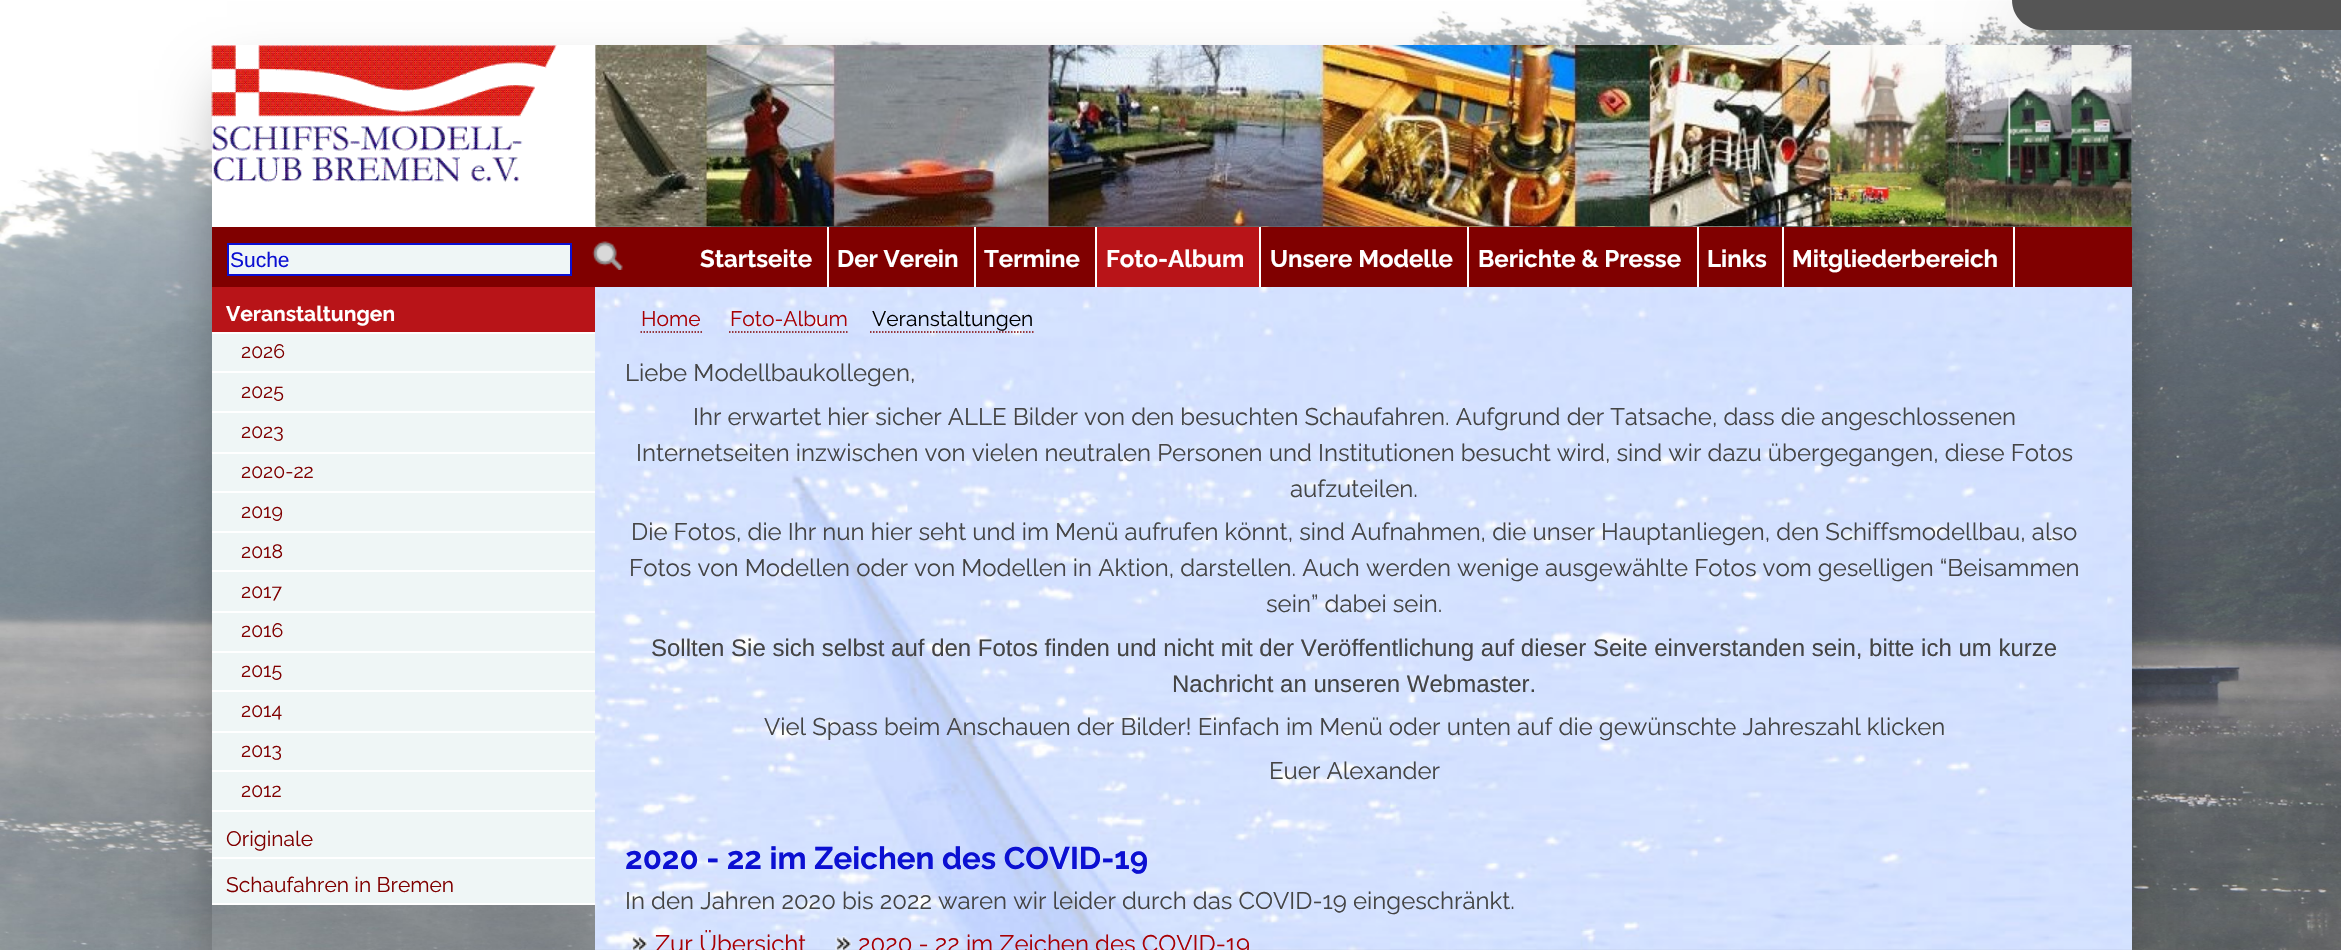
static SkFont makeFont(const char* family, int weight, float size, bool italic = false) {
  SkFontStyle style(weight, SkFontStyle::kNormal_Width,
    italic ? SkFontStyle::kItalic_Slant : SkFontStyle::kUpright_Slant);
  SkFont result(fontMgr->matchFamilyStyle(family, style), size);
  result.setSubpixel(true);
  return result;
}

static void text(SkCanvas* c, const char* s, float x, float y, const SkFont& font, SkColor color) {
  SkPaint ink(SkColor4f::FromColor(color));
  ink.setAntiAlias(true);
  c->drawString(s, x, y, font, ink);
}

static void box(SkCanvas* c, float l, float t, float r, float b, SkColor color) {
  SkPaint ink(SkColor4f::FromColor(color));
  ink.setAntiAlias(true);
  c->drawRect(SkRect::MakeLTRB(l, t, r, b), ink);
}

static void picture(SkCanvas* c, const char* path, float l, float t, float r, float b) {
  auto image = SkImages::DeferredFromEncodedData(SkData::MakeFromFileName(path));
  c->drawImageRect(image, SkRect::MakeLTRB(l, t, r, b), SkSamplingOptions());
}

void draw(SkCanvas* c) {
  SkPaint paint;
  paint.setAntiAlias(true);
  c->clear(0xffffffff);
  picture(c, "img_01.png", 0, 0, 2341, 45);
  picture(c, "img_02.png", 0, 45, 2341, 950);
  c->save();
  c->clipPath(SkPathBuilder(SkPathFillType::kEvenOdd).moveTo(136, 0).lineTo(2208, 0).lineTo(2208, 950).lineTo(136, 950).close().moveTo(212, 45).lineTo(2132, 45).lineTo(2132, 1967).lineTo(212, 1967).close().detach(), true);
  paint.setColor(0x66000000);
  paint.setMaskFilter(SkMaskFilter::MakeBlur(kNormal_SkBlurStyle, 30));
  c->drawRect(SkRect::MakeLTRB(227, 90, 2117, 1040), paint);
  paint.setMaskFilter(nullptr);
  c->restore();
  box(c, 212, 84, 596, 227, 0xffffffff);
  picture(c, "img_04.png", 595, 45, 2132, 227);
  picture(c, "img_05.png", 595, 45, 2072, 227);
  paint.setColor(0x33000000);
  paint.setMaskFilter(SkMaskFilter::MakeBlur(kNormal_SkBlurStyle, 37.5f));
  c->drawRoundRect(SkRect::MakeLTRB(2012, 15, 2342, 45), 30, 30, paint);
  paint.setMaskFilter(nullptr);
  paint.setColor(0xff555555);
  c->drawPath(SkPathBuilder().moveTo(2012, 0).lineTo(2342, 0).lineTo(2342, 30).lineTo(2042, 30).cubicTo(2025.5f, 30, 2012, 16.5f, 2012, 0).close().detach(), paint);
  picture(c, "img_03.png", 211, 45, 557, 182);
  box(c, 212, 227, 2132, 287, 0xff800000);
  paint.setColor(0xffeff6f6);
  c->drawRect(SkRect::MakeLTRB(228, 244, 571, 275), paint);
  paint.setStyle(SkPaint::kStroke_Style);
  paint.setStrokeWidth(2);
  paint.setColor(0xff0b10d2);
  c->drawRect(SkRect::MakeLTRB(228, 244, 571, 275), paint);
  SkFont face1 = makeFont("Liberation Sans", 400, 21);
  text(c, "Suche", 230, 267, face1, 0xff0b10d2);
  picture(c, "img_06.png", 592, 241, 623, 270);
  box(c, 827, 227, 829, 287, 0xffffffff);
  SkFont face2 = makeFont("Raleway", 700, 24);
  text(c, "Startseite", 700, 267, face2, 0xffffffff);
  box(c, 974, 227, 976, 287, 0xffffffff);
  text(c, "Der Verein", 837, 267, face2, 0xffffffff);
  box(c, 1095, 227, 1097, 287, 0xffffffff);
  text(c, "Termine", 984, 267, face2, 0xffffffff);
  box(c, 1097, 227, 1259, 287, 0xffb81418);
  box(c, 1259, 227, 1261, 287, 0xffffffff);
  text(c, "Foto-Album", 1106, 267, face2, 0xffffffff);
  box(c, 1467, 227, 1469, 287, 0xffffffff);
  text(c, "Unsere Modelle", 1270, 267, face2, 0xffffffff);
  box(c, 1697, 227, 1699, 287, 0xffffffff);
  text(c, "Berichte & Presse", 1478, 267, face2, 0xffffffff);
  box(c, 1782, 227, 1784, 287, 0xffffffff);
  text(c, "Links", 1707, 267, face2, 0xffffffff);
  box(c, 2013, 227, 2015, 287, 0xffffffff);
  text(c, "Mitgliederbereich", 1792, 267, face2, 0xffffffff);
  box(c, 212, 334, 595, 903, 0xffeff6f6);
  box(c, 212, 287, 595, 332, 0xffb81418);
  box(c, 212, 332, 596, 334, 0xffffffff);
  SkFont face3 = makeFont("Raleway", 700, 21);
  text(c, "Veranstaltungen", 226, 321, face3, 0xffffffff);
  box(c, 212, 371, 596, 373, 0xffffffff);
  SkFont face4 = makeFont("Raleway", 400, 19.5f);
  text(c, "2026", 241, 358, face4, 0xff800000);
  box(c, 212, 411, 596, 413, 0xffffffff);
  text(c, "2025", 241, 398, face4, 0xff800000);
  box(c, 212, 452, 596, 454, 0xffffffff);
  text(c, "2023", 241, 438, face4, 0xff800000);
  box(c, 212, 491, 596, 493, 0xffffffff);
  text(c, "2020-22", 241, 478, face4, 0xff800000);
  box(c, 212, 531, 596, 533, 0xffffffff);
  text(c, "2019", 241, 518, face4, 0xff800000);
  box(c, 212, 570, 596, 572, 0xffffffff);
  text(c, "2018", 241, 558, face4, 0xff800000);
  box(c, 212, 611, 596, 613, 0xffffffff);
  text(c, "2017", 241, 598, face4, 0xff800000);
  box(c, 212, 651, 596, 653, 0xffffffff);
  text(c, "2016", 241, 637, face4, 0xff800000);
  box(c, 212, 690, 596, 692, 0xffffffff);
  text(c, "2015", 241, 677, face4, 0xff800000);
  box(c, 212, 731, 596, 733, 0xffffffff);
  text(c, "2014", 241, 717, face4, 0xff800000);
  box(c, 212, 770, 596, 772, 0xffffffff);
  text(c, "2013", 241, 757, face4, 0xff800000);
  box(c, 212, 810, 596, 812, 0xffffffff);
  text(c, "2012", 241, 797, face4, 0xff800000);
  box(c, 212, 857, 596, 859, 0xffffffff);
  SkFont face5 = makeFont("Raleway", 400, 21);
  text(c, "Originale", 226, 846, face5, 0xff800000);
  box(c, 212, 903, 596, 905, 0xffffffff);
  text(c, "Schaufahren in Bremen", 226, 892, face5, 0xff800000);
  picture(c, "img_07.png", 595, 287, 2132, 950);
  text(c, "Home", 641, 326, face5, 0xffa80004);
  paint.setStrokeWidth(1.5f);
  paint.setColor(0xff800000);
  paint.setPathEffect(SkDashPathEffect::Make({{1.5f, 1.5f}}, 0));
  c->drawPath(SkPathBuilder().moveTo(640.5f, 332).lineTo(702, 332).detach(), paint);
  paint.setPathEffect(nullptr);
  text(c, "Foto-Album", 730, 326, face5, 0xffa80004);
  paint.setPathEffect(SkDashPathEffect::Make({{1.5f, 1.5f}}, 0));
  c->drawPath(SkPathBuilder().moveTo(729, 332).lineTo(849, 332).detach(), paint);
  paint.setPathEffect(nullptr);
  text(c, "Veranstaltungen", 872, 326, face5, 0xff000000);
  paint.setPathEffect(SkDashPathEffect::Make({{1.5f, 1.5f}}, 0));
  c->drawPath(SkPathBuilder().moveTo(870, 332).lineTo(1035, 332).detach(), paint);
  paint.setPathEffect(nullptr);
  SkFont face6 = makeFont("Raleway", 400, 24);
  text(c, "Liebe Modellbaukollegen,", 625, 381, face6, 0xff444444);
  text(c, "Ihr erwartet hier sicher ALLE Bilder von den besuchten Schaufahren. Aufgrund der Tatsache, dass die angeschlossenen", 693, 425, face6, 0xff444444);
  text(c, "Internetseiten inzwischen von vielen neutralen Personen und Institutionen besucht wird, sind wir dazu übergegangen, diese Fotos", 636, 461, face6, 0xff444444);
  text(c, "aufzuteilen.", 1290, 497, face6, 0xff444444);
  text(c, "Die Fotos, die Ihr nun hier seht und im Menü aufrufen könnt, sind Aufnahmen, die unser Hauptanliegen, den Schiffsmodellbau, also", 631, 540, face6, 0xff444444);
  text(c, "Fotos von Modellen oder von Modellen in Aktion, darstellen. Auch werden wenige ausgewählte Fotos vom geselligen “Beisammen", 629, 576, face6, 0xff444444);
  text(c, "sein” dabei sein.", 1266, 612, face6, 0xff444444);
  SkFont face7 = makeFont("Liberation Sans", 400, 24);
  text(c, "Sollten Sie sich selbst auf den Fotos finden und nicht mit der Veröffentlichung auf dieser Seite einverstanden sein, bitte ich um kurze", 651, 656, face7, 0xff444444);
  text(c, "Nachricht an unseren Webmaster.", 1172, 692, face7, 0xff444444);
  text(c, "Viel Spass beim Anschauen der Bilder! Einfach im Menü oder unten auf die gewünschte Jahreszahl klicken", 764, 735, face6, 0xff444444);
  text(c, "Euer Alexander", 1269, 779, face6, 0xff444444);
  SkFont face8 = makeFont("Raleway", 700, 31.25f);
  text(c, "2020 - 22 im Zeichen des COVID-19", 625, 869, face8, 0xff0b10d2);
  text(c, "In den Jahren 2020 bis 2022 waren wir leider durch das COVID-19 eingeschränkt.", 625, 909, face6, 0xff444444);
  picture(c, "img_08.png", 631, 936, 648, 950);
  text(c, "Zur Übersicht", 655, 952, face6, 0xffa80004);
  picture(c, "img_09.png", 835, 936, 852, 950);
  text(c, "2020 - 22 im Zeichen des COVID-19", 858, 952, face6, 0xffa80004);
}
